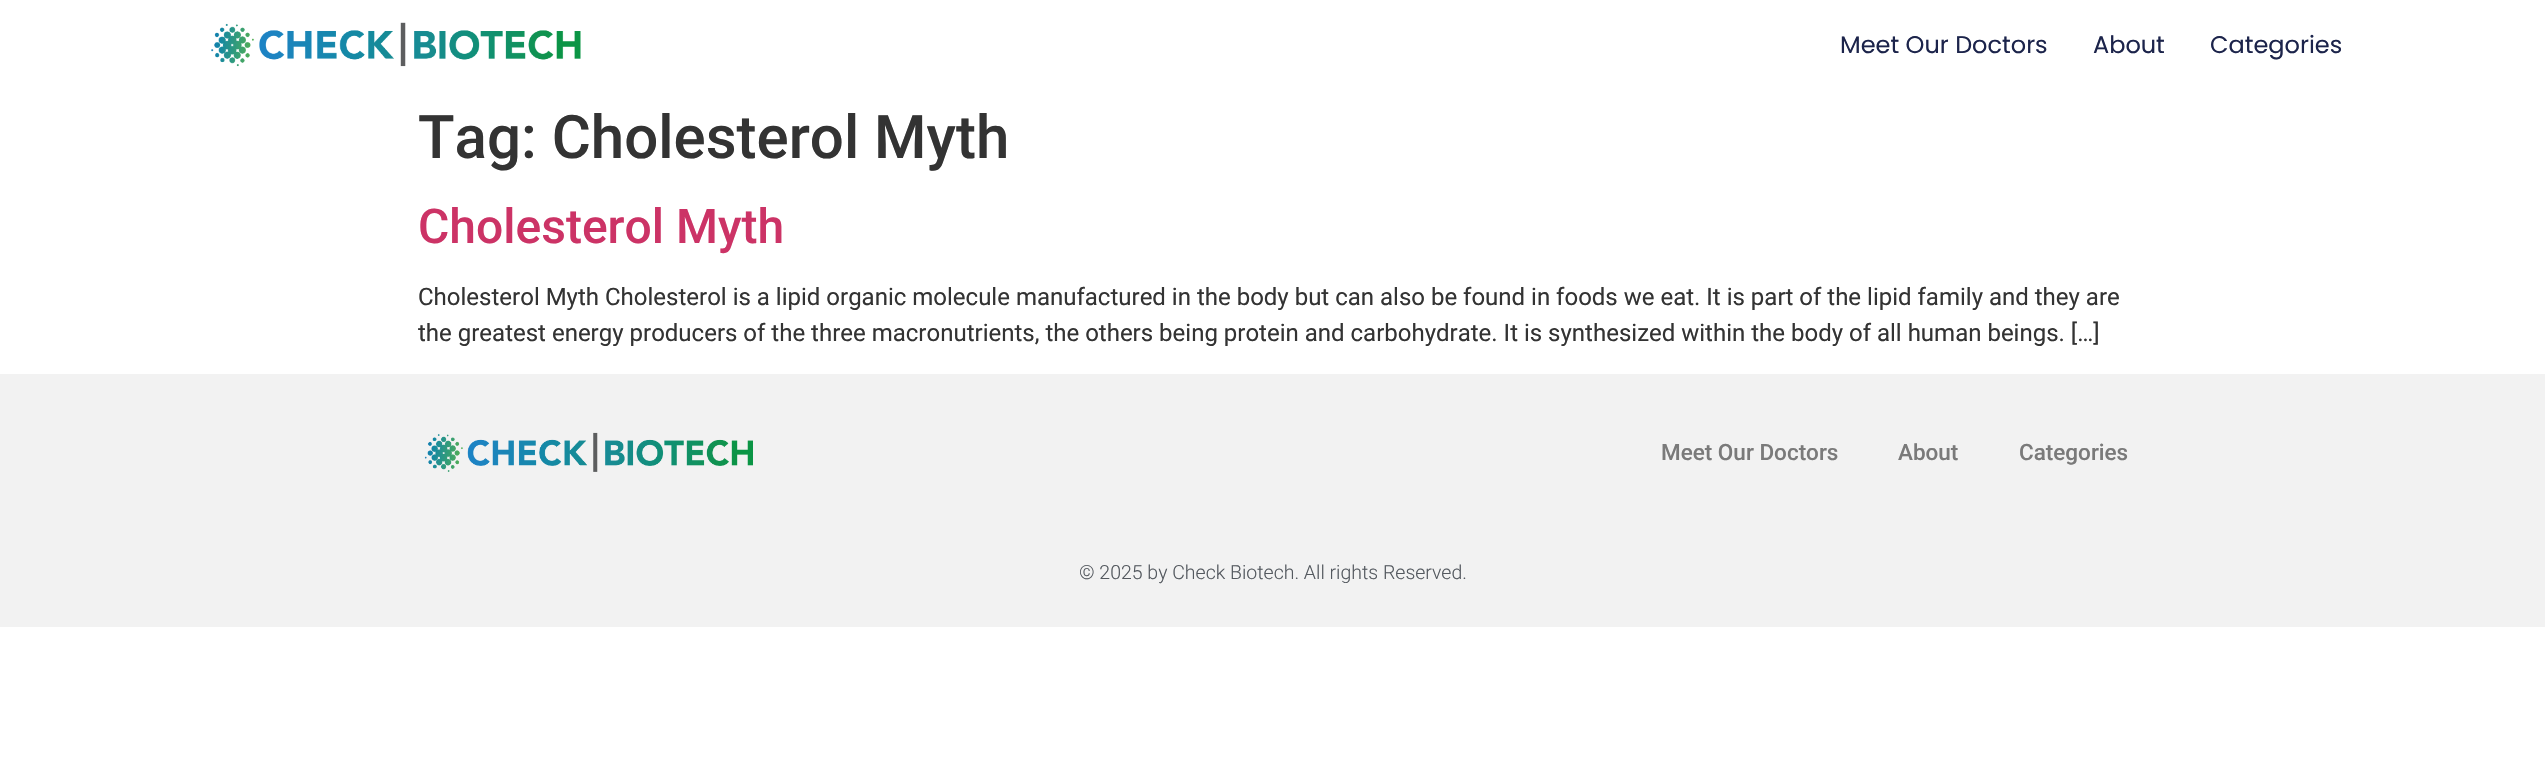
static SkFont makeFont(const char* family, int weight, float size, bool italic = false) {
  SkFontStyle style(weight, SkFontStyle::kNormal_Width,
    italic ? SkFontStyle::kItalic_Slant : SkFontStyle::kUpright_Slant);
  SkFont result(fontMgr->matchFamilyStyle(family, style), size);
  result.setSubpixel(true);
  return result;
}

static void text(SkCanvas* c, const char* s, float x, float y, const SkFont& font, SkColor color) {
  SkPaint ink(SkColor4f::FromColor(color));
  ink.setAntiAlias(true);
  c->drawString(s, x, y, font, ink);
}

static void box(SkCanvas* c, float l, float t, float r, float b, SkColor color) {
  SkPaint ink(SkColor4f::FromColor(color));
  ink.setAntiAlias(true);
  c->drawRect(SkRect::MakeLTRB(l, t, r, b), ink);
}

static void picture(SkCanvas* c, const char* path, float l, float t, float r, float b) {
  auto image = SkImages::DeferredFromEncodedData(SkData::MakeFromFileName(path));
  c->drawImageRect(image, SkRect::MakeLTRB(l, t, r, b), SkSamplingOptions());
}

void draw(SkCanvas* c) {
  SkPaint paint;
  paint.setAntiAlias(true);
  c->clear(0xffffffff);
  picture(c, "img_01.png", 211, 22, 581, 67);
  SkFont face1 = makeFont("Poppins", 400, 24);
  text(c, "Meet Our Doctors", 1840, 53, face1, 0xff1c244b);
  text(c, "About", 2093, 53, face1, 0xff1c244b);
  text(c, "Categories", 2210, 53, face1, 0xff1c244b);
  SkFont face2 = makeFont("Roboto", 500, 60);
  text(c, "Tag: Cholesterol Myth", 418, 158, face2, 0xff333333);
  SkFont face3 = makeFont("Roboto", 500, 48);
  text(c, "Cholesterol Myth", 418, 243, face3, 0xffcc3366);
  SkFont face4 = makeFont("Roboto", 400, 24);
  text(c, "Cholesterol Myth Cholesterol is a lipid organic molecule manufactured in the body but can also be found in foods we eat. It is part of the lipid family and they are", 418, 305, face4, 0xff333333);
  text(c, "the greatest energy producers of the three macronutrients, the others being protein and carbohydrate. It is synthesized within the body of all human beings. […]", 418, 341, face4, 0xff333333);
  box(c, 0, 374, 2545, 627, 0xfff2f2f2);
  picture(c, "img_02.png", 424, 432, 753, 472);
  SkFont face5 = makeFont("Roboto", 500, 22.5f);
  text(c, "Meet Our Doctors", 1661, 460, face5, 0xff7a7a7a);
  text(c, "About", 1898, 460, face5, 0xff7a7a7a);
  text(c, "Categories", 2019, 460, face5, 0xff7a7a7a);
  SkFont face6 = makeFont("Roboto", 300, 19.5f);
  text(c, "© 2025 by Check Biotech. All rights Reserved.", 1079, 579, face6, 0xff54595f);
}
